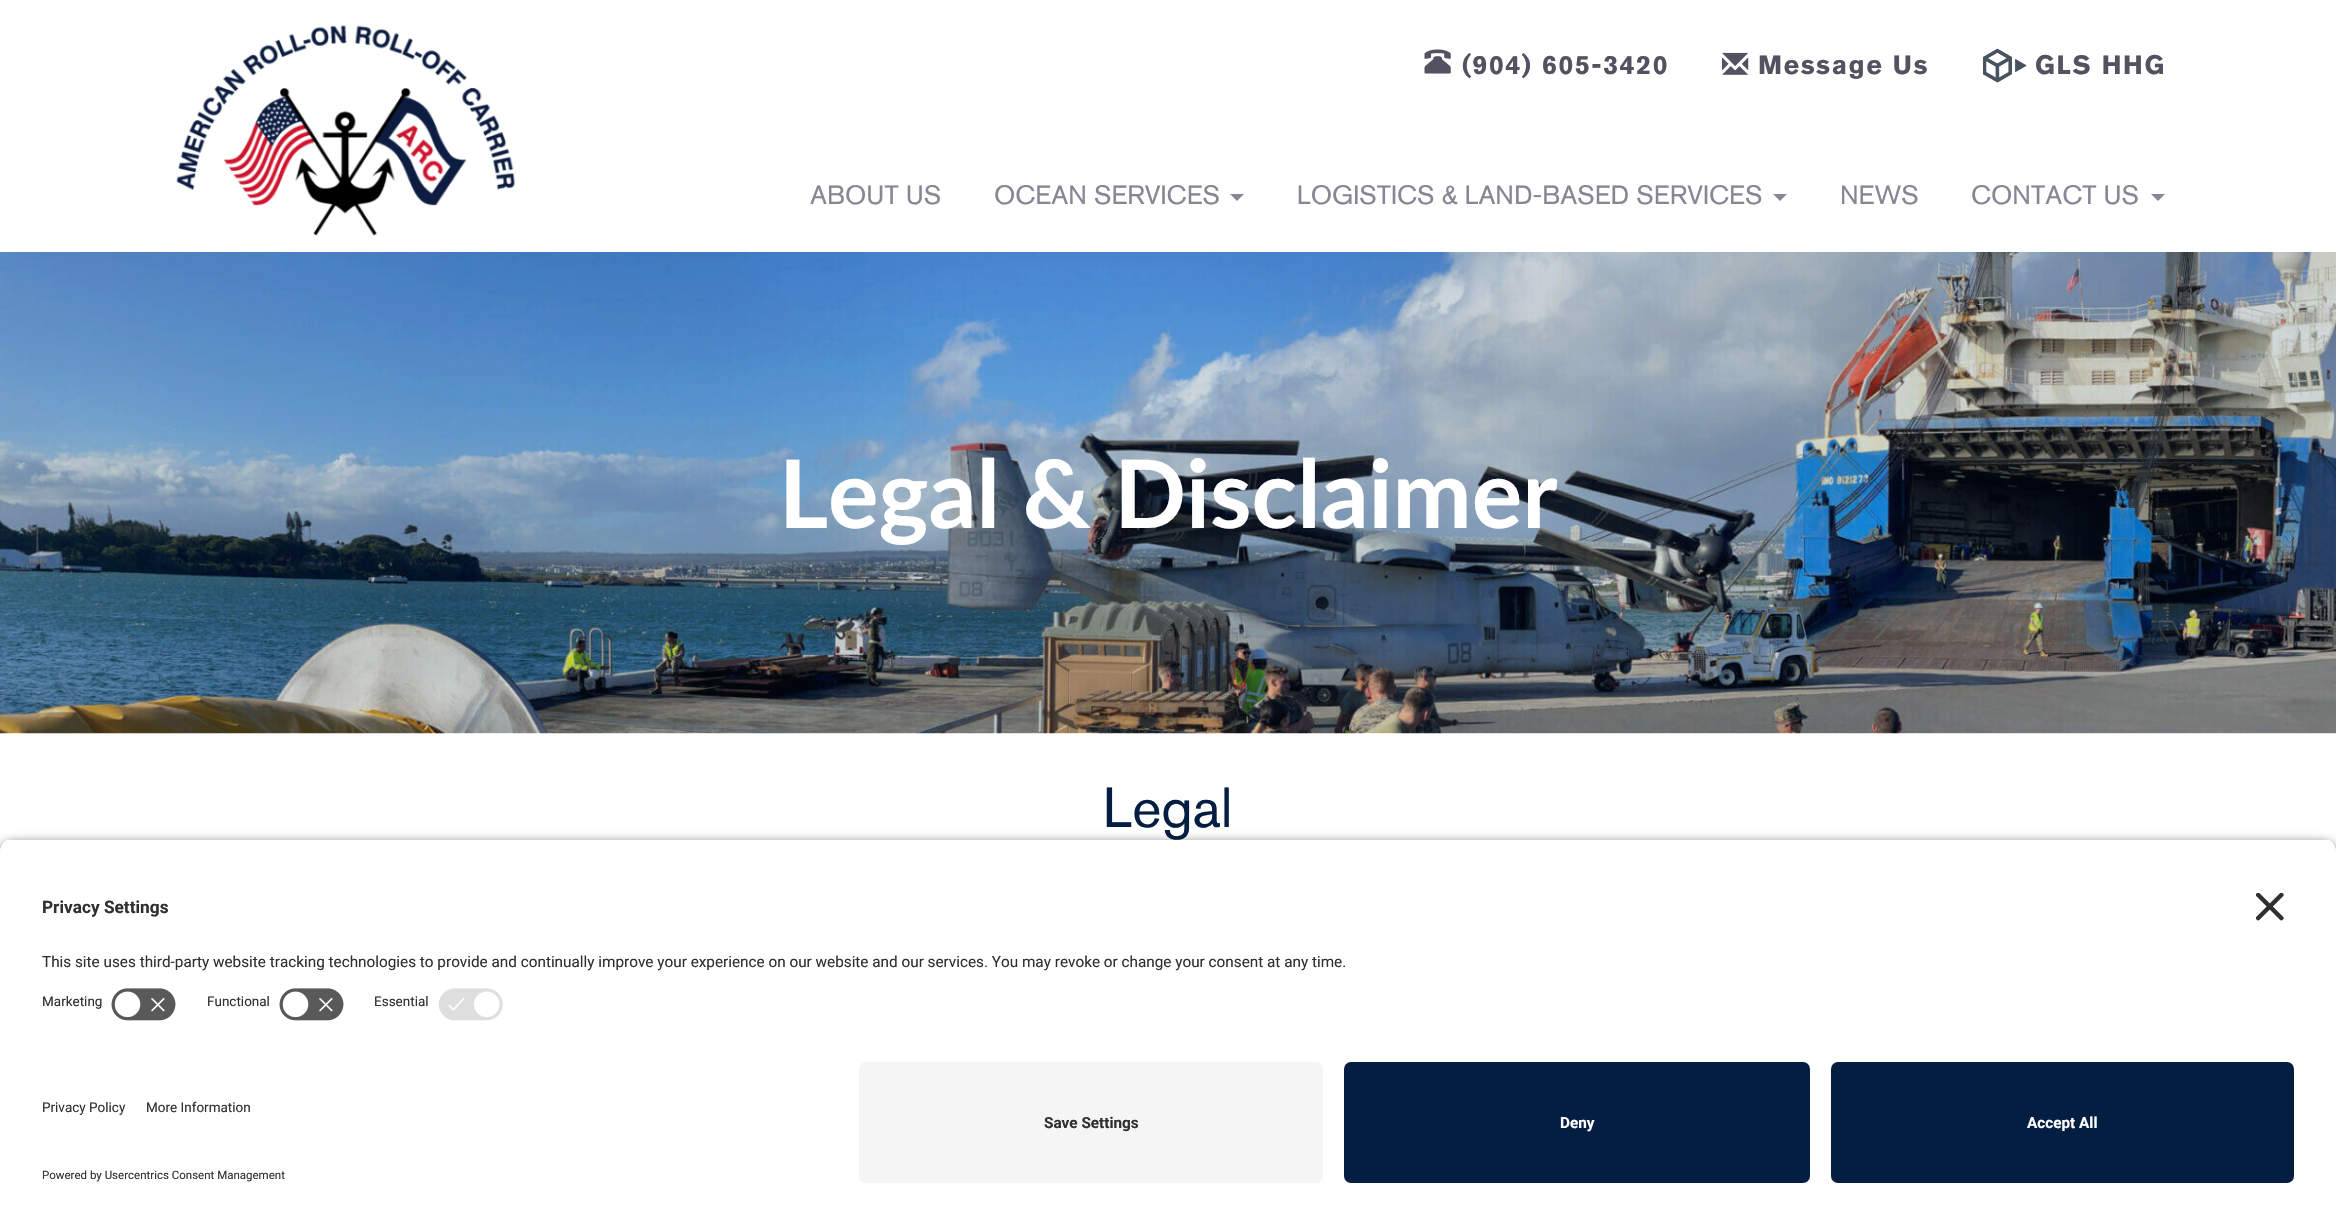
static SkFont makeFont(const char* family, int weight, float size, bool italic = false) {
  SkFontStyle style(weight, SkFontStyle::kNormal_Width,
    italic ? SkFontStyle::kItalic_Slant : SkFontStyle::kUpright_Slant);
  SkFont result(fontMgr->matchFamilyStyle(family, style), size);
  result.setSubpixel(true);
  return result;
}

static void text(SkCanvas* c, const char* s, float x, float y, const SkFont& font, SkColor color) {
  SkPaint ink(SkColor4f::FromColor(color));
  ink.setAntiAlias(true);
  c->drawString(s, x, y, font, ink);
}

static void spacedText(SkCanvas* c, const char* s, float x, float y, const SkFont& font, const SkPaint& ink, float letter, float word) {
  std::vector<SkGlyphID> glyphs(font.countText(s, strlen(s), SkTextEncoding::kUTF8));
  std::vector<float> xs(glyphs.size());
  font.textToGlyphs(s, strlen(s), SkTextEncoding::kUTF8, glyphs);
  font.getXPos(glyphs, xs, x);
  float extra = 0;
  for (size_t i = 0; i < glyphs.size(); i++) {
    xs[i] += extra;
    extra += letter + word * (glyphs[i] == font.unicharToGlyph(' '));
  }
  c->drawTextBlob(SkTextBlob::MakeFromPosHGlyphs(glyphs, xs, y, font), 0, 0, ink);
}

static void box(SkCanvas* c, float l, float t, float r, float b, SkColor color) {
  SkPaint ink(SkColor4f::FromColor(color));
  ink.setAntiAlias(true);
  c->drawRect(SkRect::MakeLTRB(l, t, r, b), ink);
}

static void roundBox(SkCanvas* c, float l, float t, float r, float b, float radius, SkColor color) {
  SkPaint ink(SkColor4f::FromColor(color));
  ink.setAntiAlias(true);
  c->drawRoundRect(SkRect::MakeLTRB(l, t, r, b), radius, radius, ink);
}

static void picture(SkCanvas* c, const char* path, float l, float t, float r, float b) {
  auto image = SkImages::DeferredFromEncodedData(SkData::MakeFromFileName(path));
  c->drawImageRect(image, SkRect::MakeLTRB(l, t, r, b), SkSamplingOptions());
}

void draw(SkCanvas* c) {
  SkPaint paint;
  paint.setAntiAlias(true);
  c->clear(0xffffffff);
  picture(c, "img_01.png", 1424, 49, 1451, 74);
  SkFont face1 = makeFont("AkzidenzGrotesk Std", 700, 26.25f);
  paint.setColor(0xff525261);
  spacedText(c, "(904) 605-3420", 1462, 74, face1, paint, 1.75f, 0);
  picture(c, "img_02.png", 1722, 52, 1749, 75);
  spacedText(c, "Message Us", 1758, 74, face1, paint, 1.75f, 0);
  picture(c, "img_03.png", 1983, 48, 2027, 83);
  spacedText(c, "GLS HHG", 2035, 74, face1, paint, 1.75f, 0);
  picture(c, "img_04.png", 176, 25, 516, 236);
  SkFont face2 = makeFont("AkzidenzGrotesk Std", 400, 26.25f);
  text(c, "ABOUT US", 810, 204, face2, 0xff868695);
  text(c, "OCEAN SERVICES", 994, 204, face2, 0xff868695);
  paint.setColor(0xff868695);
  c->drawPath(SkPathBuilder().moveTo(1230, 194).lineTo(1244, 194).lineTo(1237, 201).close().detach(), paint);
  text(c, "LOGISTICS & LAND-BASED SERVICES", 1297, 204, face2, 0xff868695);
  c->drawPath(SkPathBuilder().moveTo(1773, 194).lineTo(1787, 194).lineTo(1780, 201).close().detach(), paint);
  text(c, "NEWS", 1840, 204, face2, 0xff868695);
  text(c, "CONTACT US", 1971, 204, face2, 0xff868695);
  c->drawPath(SkPathBuilder().moveTo(2151, 194).lineTo(2165, 194).lineTo(2158, 201).close().detach(), paint);
  picture(c, "img_05.png", 0, 252, 2336, 734);
  SkFont face3 = makeFont("Lato", 700, 94.5f);
  text(c, "Legal & Disclaimer", 779, 528, face3, 0xffffffff);
  SkFont face4 = makeFont("AkzidenzGrotesk Std", 400, 56);
  text(c, "Legal", 1103, 827, face4, 0xff041e42);
  paint.setColor(0xcc000000);
  paint.setMaskFilter(SkMaskFilter::MakeBlur(kNormal_SkBlurStyle, 6));
  c->drawRoundRect(SkRect::MakeLTRB(0, 844, 2336, 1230), 14, 14, paint);
  paint.setMaskFilter(nullptr);
  c->save();
  c->clipPath(SkPathBuilder().moveTo(14, 838).lineTo(2322, 838).cubicTo(2329.5f, 838, 2336, 844.5f, 2336, 852).lineTo(2336, 1048).lineTo(0, 1048).lineTo(0, 852).cubicTo(0, 844.5f, 6.5f, 838, 14, 838).close().detach(), true);
  box(c, 0, 840, 2336, 1048, 0xffffffff);
  box(c, 0, 840, 2336, 978, 0xffffffff);
  c->restore();
  SkFont face5 = makeFont("Roboto", 700, 17.25f);
  text(c, "Privacy Settings", 42, 913, face5, 0xff303030);
  picture(c, "img_06.png", 2256, 893, 2284, 921);
  SkFont face6 = makeFont("Roboto", 400, 15.3f);
  text(c, "This site uses third-party website tracking technologies to provide and continually improve your experience on our website and our services. You may revoke or change your consent at any time.", 42, 967, face6, 0xff303030);
  SkFont face7 = makeFont("Roboto", 400, 13.5f);
  text(c, "Marketing", 42, 1006, face7, 0xff303030);
  picture(c, "img_07.png", 111, 988, 176, 1021);
  text(c, "Functional", 207, 1006, face7, 0xff303030);
  picture(c, "img_07.png", 279, 988, 344, 1021);
  text(c, "Essential", 374, 1006, face7, 0xff303030);
  picture(c, "img_08.png", 438, 988, 503, 1021);
  box(c, 0, 1048, 2336, 1224, 0xffffffff);
  text(c, "Privacy Policy", 42, 1112, face7, 0xff303030);
  text(c, "More Information", 146, 1112, face7, 0xff303030);
  SkFont face8 = makeFont("Roboto", 400, 11.5f);
  text(c, "Powered by Usercentrics Consent Management", 42, 1179, face8, 0xff303030);
  roundBox(c, 859, 1062, 1323, 1183, 7, 0xfff5f5f5);
  SkFont face9 = makeFont("Roboto", 700, 15.3f);
  text(c, "Save Settings", 1044, 1128, face9, 0xff303030);
  roundBox(c, 1344, 1062, 1810, 1183, 7, 0xff041e42);
  text(c, "Deny", 1560, 1128, face9, 0xffffffff);
  roundBox(c, 1831, 1062, 2294, 1183, 7, 0xff041e42);
  text(c, "Accept All", 2027, 1128, face9, 0xffffffff);
}
